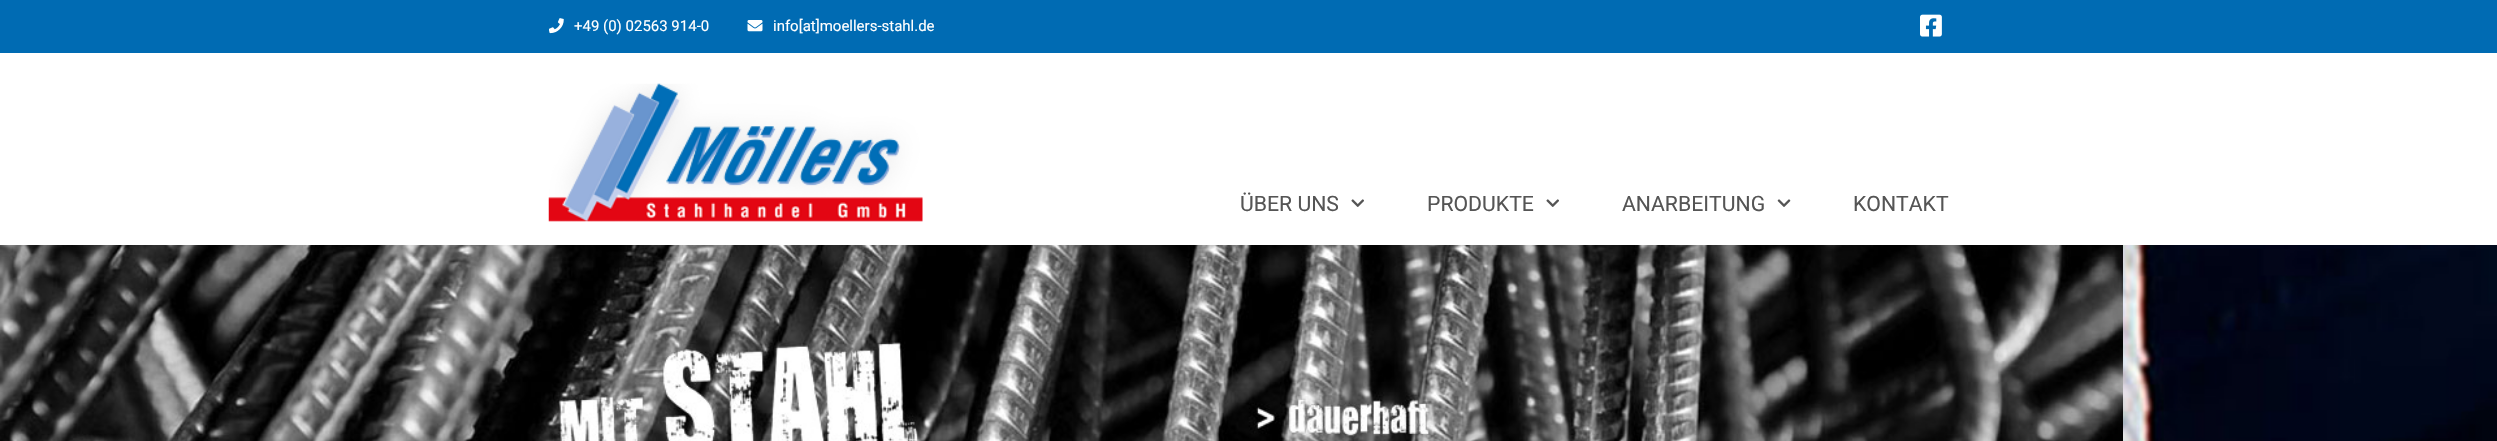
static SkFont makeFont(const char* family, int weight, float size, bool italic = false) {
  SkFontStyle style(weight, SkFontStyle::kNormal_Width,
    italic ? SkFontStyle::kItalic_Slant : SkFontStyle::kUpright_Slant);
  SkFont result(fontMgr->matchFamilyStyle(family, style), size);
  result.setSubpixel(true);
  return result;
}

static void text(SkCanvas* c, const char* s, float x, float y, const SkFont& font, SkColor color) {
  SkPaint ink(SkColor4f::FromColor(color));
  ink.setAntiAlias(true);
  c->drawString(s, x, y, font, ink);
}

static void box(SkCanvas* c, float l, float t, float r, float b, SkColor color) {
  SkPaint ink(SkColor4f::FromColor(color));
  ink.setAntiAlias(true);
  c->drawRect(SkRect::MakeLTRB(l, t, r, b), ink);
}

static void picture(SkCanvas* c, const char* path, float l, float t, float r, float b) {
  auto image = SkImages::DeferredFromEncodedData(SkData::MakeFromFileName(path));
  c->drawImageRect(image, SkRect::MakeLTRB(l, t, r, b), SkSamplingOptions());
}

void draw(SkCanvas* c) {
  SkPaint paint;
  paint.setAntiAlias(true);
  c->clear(0xffffffff);
  box(c, 0, 0, 2497, 53, 0xff006bb3);
  picture(c, "img_01.png", 549, 18, 564, 34);
  SkFont face1 = makeFont("Roboto", 400, 15);
  text(c, "+49 (0) 02563 914-0", 574, 31, face1, 0xffffffff);
  picture(c, "img_02.png", 747, 20, 763, 32);
  text(c, "info[at]moellers-stahl.de", 773, 31, face1, 0xffffffff);
  picture(c, "img_03.png", 1920, 14, 1942, 37);
  picture(c, "img_04.png", 548, 83, 923, 222);
  SkFont face2 = makeFont("Roboto", 400, 21.25f);
  text(c, "ÜBER UNS", 1240, 211, face2, 0xff555555);
  picture(c, "img_05.png", 1351, 199, 1364, 207);
  text(c, "PRODUKTE", 1427, 211, face2, 0xff555555);
  picture(c, "img_05.png", 1546, 199, 1559, 207);
  text(c, "ANARBEITUNG", 1622, 211, face2, 0xff555555);
  picture(c, "img_06.png", 1777, 199, 1791, 207);
  text(c, "KONTAKT", 1853, 211, face2, 0xff555555);
  picture(c, "img_07.png", 0, 245, 2123, 441);
  picture(c, "img_08.png", 2123, 245, 2497, 441);
}
